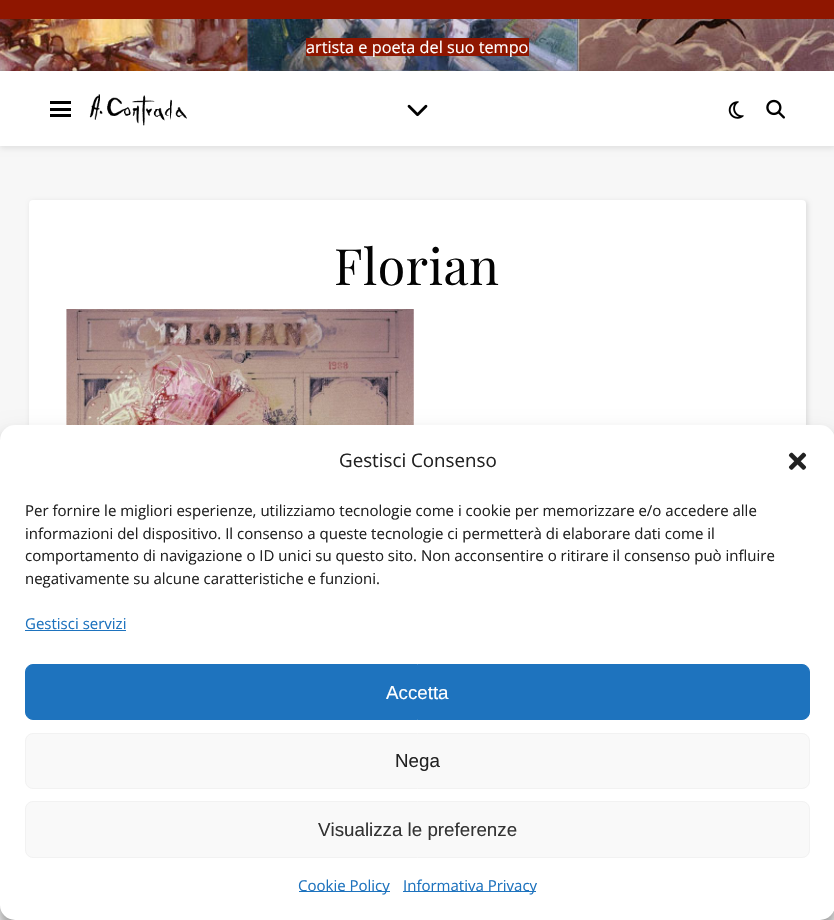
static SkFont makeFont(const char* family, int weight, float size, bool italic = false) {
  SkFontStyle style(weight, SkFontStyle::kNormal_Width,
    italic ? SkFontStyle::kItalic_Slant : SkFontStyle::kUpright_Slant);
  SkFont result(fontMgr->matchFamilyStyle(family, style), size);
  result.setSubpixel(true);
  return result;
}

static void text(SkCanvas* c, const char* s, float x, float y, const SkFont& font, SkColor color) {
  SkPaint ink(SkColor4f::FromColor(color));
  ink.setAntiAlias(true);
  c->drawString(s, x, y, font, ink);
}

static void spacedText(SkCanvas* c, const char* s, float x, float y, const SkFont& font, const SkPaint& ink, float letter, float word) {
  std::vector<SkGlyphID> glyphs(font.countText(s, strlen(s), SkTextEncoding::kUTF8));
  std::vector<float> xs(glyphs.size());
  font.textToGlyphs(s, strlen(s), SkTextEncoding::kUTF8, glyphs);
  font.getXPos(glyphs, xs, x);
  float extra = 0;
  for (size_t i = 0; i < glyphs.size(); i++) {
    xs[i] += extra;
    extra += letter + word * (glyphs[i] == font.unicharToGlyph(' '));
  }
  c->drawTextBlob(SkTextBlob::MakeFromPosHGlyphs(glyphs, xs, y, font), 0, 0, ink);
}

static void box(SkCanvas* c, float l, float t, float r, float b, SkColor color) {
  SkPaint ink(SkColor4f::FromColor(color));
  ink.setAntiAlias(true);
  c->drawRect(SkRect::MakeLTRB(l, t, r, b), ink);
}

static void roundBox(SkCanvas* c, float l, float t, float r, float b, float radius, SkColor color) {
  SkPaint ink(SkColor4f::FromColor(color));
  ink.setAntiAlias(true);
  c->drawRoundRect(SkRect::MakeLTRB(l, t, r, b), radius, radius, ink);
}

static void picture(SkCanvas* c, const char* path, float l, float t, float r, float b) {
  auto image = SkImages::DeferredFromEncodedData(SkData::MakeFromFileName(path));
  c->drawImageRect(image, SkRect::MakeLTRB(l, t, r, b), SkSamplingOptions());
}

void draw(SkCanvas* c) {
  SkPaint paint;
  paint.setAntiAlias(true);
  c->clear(0xfff7f7f7);
  picture(c, "img_01.png", 0, 19, 834, 71);
  box(c, 0, 0, 834, 19, 0xff8f1600);
  box(c, 306, 38, 529, 56, 0xff8f1600);
  SkFont face1 = makeFont("Open Sans", 400, 16.25f);
  text(c, "artista e poeta del suo tempo", 306, 53, face1, 0xffffffff);
  paint.setColor(0x1a000000);
  paint.setMaskFilter(SkMaskFilter::MakeBlur(kNormal_SkBlurStyle, 3));
  c->drawRect(SkRect::MakeLTRB(0, 73, 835, 148), paint);
  paint.setMaskFilter(nullptr);
  box(c, 0, 71, 834, 146, 0xffffffff);
  box(c, 50, 101, 71, 104, 0xff000000);
  box(c, 50, 108, 71, 111, 0xff000000);
  box(c, 50, 114, 71, 117, 0xff000000);
  picture(c, "img_02.png", 89, 94, 187, 126);
  picture(c, "img_03.png", 407, 104, 428, 117);
  picture(c, "img_04.png", 728, 101, 744, 119);
  picture(c, "img_05.png", 766, 99, 785, 119);
  paint.setMaskFilter(SkMaskFilter::MakeBlur(kNormal_SkBlurStyle, 2));
  c->drawRoundRect(SkRect::MakeLTRB(30, 201, 808, 885), 4, 4, paint);
  paint.setMaskFilter(nullptr);
  roundBox(c, 29, 200, 806, 884, 4, 0xffffffff);
  SkFont face2 = makeFont("Playfair Display", 400, 50);
  paint.setColor(0xff030303);
  spacedText(c, "Florian", 334, 285, face2, paint, 0.5f, 0);
  picture(c, "img_06.png", 66, 309, 414, 425);
  paint.setColor(0x3b000000);
  paint.setMaskFilter(SkMaskFilter::MakeBlur(kNormal_SkBlurStyle, 4));
  c->drawRoundRect(SkRect::MakeLTRB(0, 433, 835, 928), 15, 15, paint);
  paint.setMaskFilter(nullptr);
  paint.setColor(0x30000000);
  paint.setMaskFilter(SkMaskFilter::MakeBlur(kNormal_SkBlurStyle, 12.5f));
  c->drawRoundRect(SkRect::MakeLTRB(0, 438, 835, 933), 15, 15, paint);
  paint.setMaskFilter(nullptr);
  roundBox(c, 0, 425, 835, 920, 15, 0xffffffff);
  SkFont face3 = makeFont("Open Sans", 400, 18.75f);
  text(c, "Gestisci Consenso", 339, 467, face3, 0xff222222);
  picture(c, "img_07.png", 788, 452, 807, 470);
  SkFont face4 = makeFont("Open Sans", 400, 15);
  text(c, "Per fornire le migliori esperienze, utilizziamo tecnologie come i cookie per memorizzare e/o accedere alle", 25, 516, face4, 0xff222222);
  text(c, "informazioni del dispositivo. Il consenso a queste tecnologie ci permetterà di elaborare dati come il", 25, 539, face4, 0xff222222);
  text(c, "comportamento di navigazione o ID unici su questo sito. Non acconsentire o ritirare il consenso può influire", 25, 561, face4, 0xff222222);
  text(c, "negativamente su alcune caratteristiche e funzioni.", 25, 584, face4, 0xff222222);
  text(c, "Gestisci servizi", 25, 629, face4, 0xff1e73be);
  box(c, 25, 630, 126, 631, 0xff1e73be);
  paint.setColor(0xff1e73be);
  c->drawRoundRect(SkRect::MakeLTRB(25.5f, 664.5f, 809.5f, 719.5f), 7.5f, 7.5f, paint);
  paint.setStyle(SkPaint::kStroke_Style);
  paint.setStrokeWidth(1);
  c->drawRoundRect(SkRect::MakeLTRB(25.5f, 664.5f, 809.5f, 719.5f), 7.5f, 7.5f, paint);
  SkFont face5 = makeFont("Liberation Sans", 400, 18.75f);
  text(c, "Accetta", 386, 699, face5, 0xffffffff);
  paint.setStyle(SkPaint::kFill_Style);
  paint.setColor(0xfff9f9f9);
  c->drawRoundRect(SkRect::MakeLTRB(25.5f, 733.5f, 809.5f, 788.5f), 7.5f, 7.5f, paint);
  paint.setStyle(SkPaint::kStroke_Style);
  paint.setColor(0xfff2f2f2);
  c->drawRoundRect(SkRect::MakeLTRB(25.5f, 733.5f, 809.5f, 788.5f), 7.5f, 7.5f, paint);
  text(c, "Nega", 395, 767, face5, 0xff222222);
  paint.setStyle(SkPaint::kFill_Style);
  paint.setColor(0xfff9f9f9);
  c->drawRoundRect(SkRect::MakeLTRB(25.5f, 801.5f, 809.5f, 857.5f), 7.5f, 7.5f, paint);
  paint.setStyle(SkPaint::kStroke_Style);
  paint.setColor(0xfff2f2f2);
  c->drawRoundRect(SkRect::MakeLTRB(25.5f, 801.5f, 809.5f, 857.5f), 7.5f, 7.5f, paint);
  text(c, "Visualizza le preferenze", 318, 836, face5, 0xff333333);
  box(c, 299, 891, 390, 892, 0xff1e73be);
  text(c, "Cookie Policy", 298, 891, face4, 0xff1e73be);
  box(c, 403, 891, 536, 892, 0xff1e73be);
  text(c, "Informativa Privacy", 403, 891, face4, 0xff1e73be);
}
